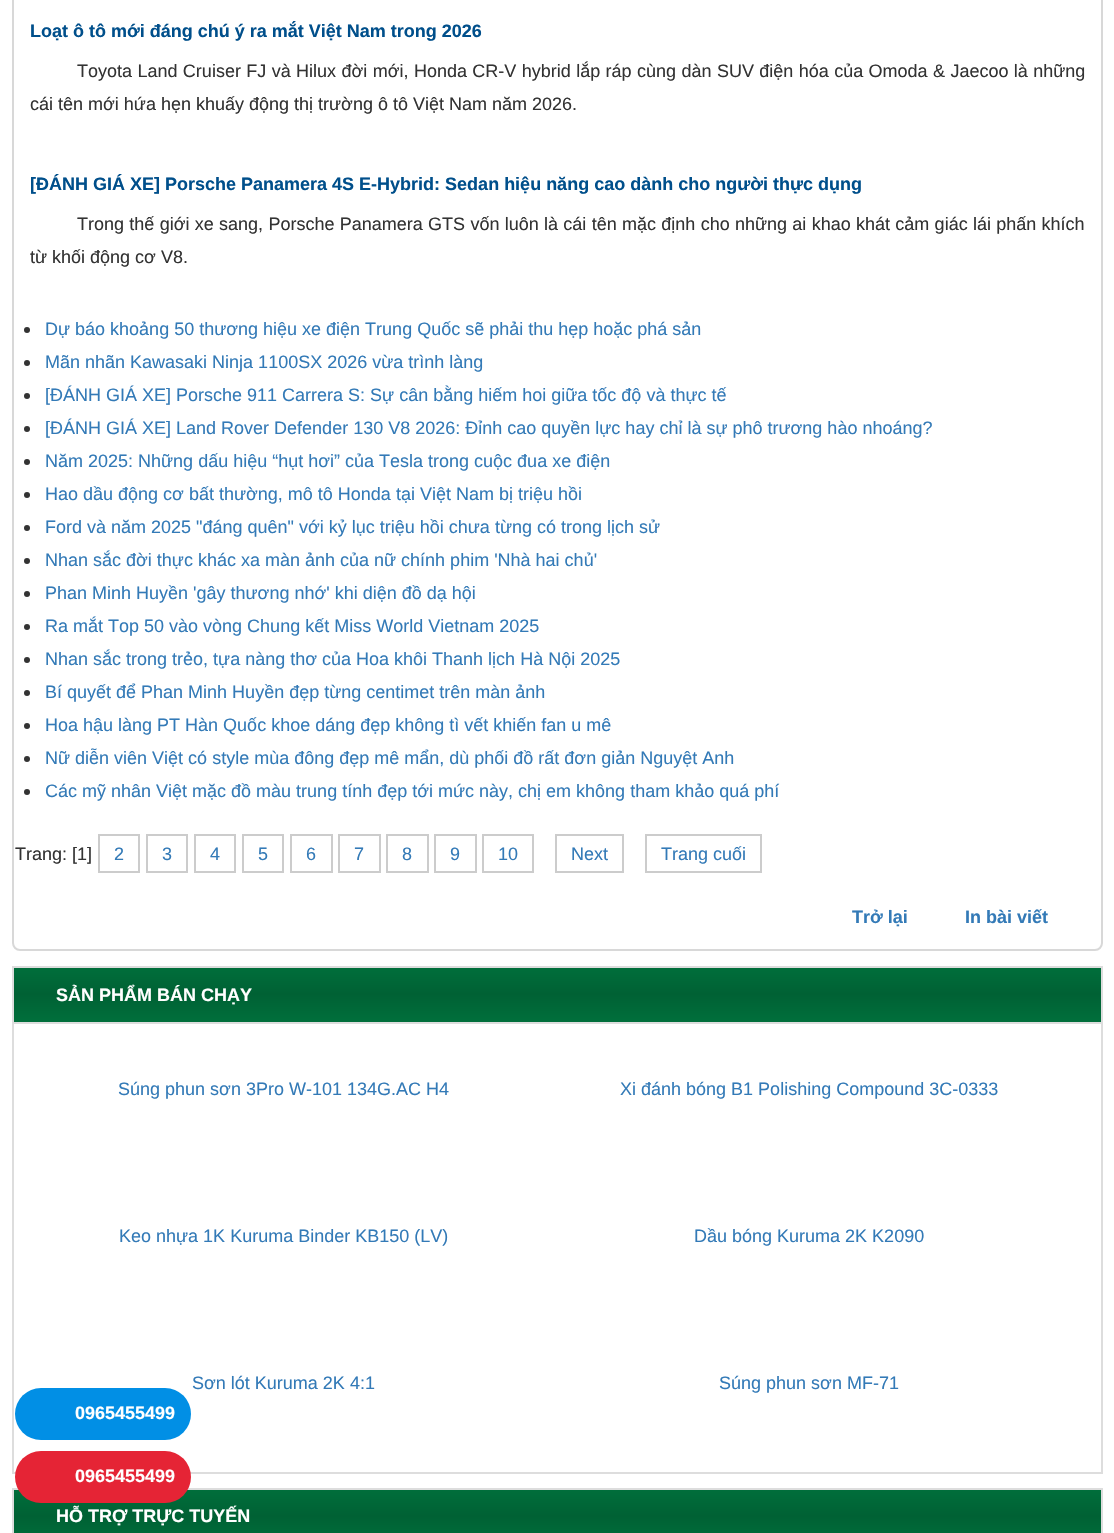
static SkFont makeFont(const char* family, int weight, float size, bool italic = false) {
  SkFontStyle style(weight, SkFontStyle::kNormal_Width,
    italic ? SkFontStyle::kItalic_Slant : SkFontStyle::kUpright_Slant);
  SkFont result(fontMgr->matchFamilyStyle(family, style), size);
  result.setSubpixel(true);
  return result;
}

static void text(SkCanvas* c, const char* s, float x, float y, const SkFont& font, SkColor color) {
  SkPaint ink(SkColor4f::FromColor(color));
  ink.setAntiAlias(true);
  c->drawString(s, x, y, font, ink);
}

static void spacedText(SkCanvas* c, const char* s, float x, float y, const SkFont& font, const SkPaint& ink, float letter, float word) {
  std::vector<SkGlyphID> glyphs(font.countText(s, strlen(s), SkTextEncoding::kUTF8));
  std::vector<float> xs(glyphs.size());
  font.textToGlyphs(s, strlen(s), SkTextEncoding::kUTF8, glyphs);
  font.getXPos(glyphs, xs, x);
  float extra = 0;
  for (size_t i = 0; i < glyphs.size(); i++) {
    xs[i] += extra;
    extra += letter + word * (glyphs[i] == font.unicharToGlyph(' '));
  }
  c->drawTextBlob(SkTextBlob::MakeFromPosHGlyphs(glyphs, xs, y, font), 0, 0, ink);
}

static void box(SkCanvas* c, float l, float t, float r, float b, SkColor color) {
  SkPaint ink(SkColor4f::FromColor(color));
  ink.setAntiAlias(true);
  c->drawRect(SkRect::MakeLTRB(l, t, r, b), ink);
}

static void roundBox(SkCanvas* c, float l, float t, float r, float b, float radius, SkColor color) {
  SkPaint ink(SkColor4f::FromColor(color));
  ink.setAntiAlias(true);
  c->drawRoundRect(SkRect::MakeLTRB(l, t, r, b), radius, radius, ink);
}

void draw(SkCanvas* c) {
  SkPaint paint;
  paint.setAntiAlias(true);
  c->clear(0xffffffff);
  paint.setStyle(SkPaint::kStroke_Style);
  paint.setStrokeWidth(2);
  paint.setColor(0xffd8d8d8);
  c->drawRoundRect(SkRect::MakeLTRB(13, -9, 1102, 950), 7, 7, paint);
  SkFont face1 = makeFont("Liberation Sans", 700, 18);
  text(c, "Loạt ô tô mới đáng chú ý ra mắt Việt Nam trong 2026", 30, 37, face1, 0xff004f8b);
  SkFont face2 = makeFont("Liberation Sans", 400, 18);
  paint.setStyle(SkPaint::kFill_Style);
  paint.setColor(0xff333333);
  spacedText(c, "Toyota Land Cruiser FJ và Hilux đời mới, Honda CR-V hybrid lắp ráp cùng dàn SUV điện hóa của Omoda & Jaecoo là những", 77, 77, face2, paint, 0, 0.4f);
  text(c, "cái tên mới hứa hẹn khuấy động thị trường ô tô Việt Nam năm 2026.", 30, 110, face2, 0xff333333);
  text(c, "[ĐÁNH GIÁ XE] Porsche Panamera 4S E-Hybrid: Sedan hiệu năng cao dành cho người thực dụng", 30, 190, face1, 0xff004f8b);
  spacedText(c, "Trong thế giới xe sang, Porsche Panamera GTS vốn luôn là cái tên mặc định cho những ai khao khát cảm giác lái phấn khích", 77, 230, face2, paint, 0, 0.3f);
  text(c, "từ khối động cơ V8.", 30, 263, face2, 0xff333333);
  c->drawCircle(27, 330, 3, paint);
  text(c, "Dự báo khoảng 50 thương hiệu xe điện Trung Quốc sẽ phải thu hẹp hoặc phá sản", 45, 335, face2, 0xff337ab7);
  c->drawCircle(27, 363, 3, paint);
  text(c, "Mãn nhãn Kawasaki Ninja 1100SX 2026 vừa trình làng", 45, 368, face2, 0xff337ab7);
  c->drawCircle(27, 396, 3, paint);
  text(c, "[ĐÁNH GIÁ XE] Porsche 911 Carrera S: Sự cân bằng hiếm hoi giữa tốc độ và thực tế", 45, 401, face2, 0xff337ab7);
  c->drawCircle(27, 429, 3, paint);
  text(c, "[ĐÁNH GIÁ XE] Land Rover Defender 130 V8 2026: Đỉnh cao quyền lực hay chỉ là sự phô trương hào nhoáng?", 45, 434, face2, 0xff337ab7);
  c->drawCircle(27, 462, 3, paint);
  text(c, "Năm 2025: Những dấu hiệu “hụt hơi” của Tesla trong cuộc đua xe điện", 45, 467, face2, 0xff337ab7);
  c->drawCircle(27, 495, 3, paint);
  text(c, "Hao dầu động cơ bất thường, mô tô Honda tại Việt Nam bị triệu hồi", 45, 500, face2, 0xff337ab7);
  c->drawCircle(27, 528, 3, paint);
  text(c, "Ford và năm 2025 \"đáng quên\" với kỷ lục triệu hồi chưa từng có trong lịch sử", 45, 533, face2, 0xff337ab7);
  c->drawCircle(27, 561, 3, paint);
  text(c, "Nhan sắc đời thực khác xa màn ảnh của nữ chính phim 'Nhà hai chủ'", 45, 566, face2, 0xff337ab7);
  c->drawCircle(27, 594, 3, paint);
  text(c, "Phan Minh Huyền 'gây thương nhớ' khi diện đồ dạ hội", 45, 599, face2, 0xff337ab7);
  c->drawCircle(27, 627, 3, paint);
  text(c, "Ra mắt Top 50 vào vòng Chung kết Miss World Vietnam 2025", 45, 632, face2, 0xff337ab7);
  c->drawCircle(27, 660, 3, paint);
  text(c, "Nhan sắc trong trẻo, tựa nàng thơ của Hoa khôi Thanh lịch Hà Nội 2025", 45, 665, face2, 0xff337ab7);
  c->drawCircle(27, 693, 3, paint);
  text(c, "Bí quyết để Phan Minh Huyền đẹp từng centimet trên màn ảnh", 45, 698, face2, 0xff337ab7);
  c->drawCircle(27, 726, 3, paint);
  text(c, "Hoa hậu làng PT Hàn Quốc khoe dáng đẹp không tì vết khiến fan u mê", 45, 731, face2, 0xff337ab7);
  c->drawCircle(27, 759, 3, paint);
  text(c, "Nữ diễn viên Việt có style mùa đông đẹp mê mẩn, dù phối đồ rất đơn giản Nguyệt Anh", 45, 764, face2, 0xff337ab7);
  c->drawCircle(27, 792, 3, paint);
  text(c, "Các mỹ nhân Việt mặc đồ màu trung tính đẹp tới mức này, chị em không tham khảo quá phí", 45, 797, face2, 0xff337ab7);
  text(c, "Trang: [1]", 15, 860, face2, 0xff333333);
  paint.setStyle(SkPaint::kStroke_Style);
  paint.setColor(0xffcccccc);
  c->drawRect(SkRect::MakeLTRB(99, 835, 139, 872), paint);
  text(c, "2", 114, 860, face2, 0xff337ab7);
  c->drawRect(SkRect::MakeLTRB(147, 835, 187, 872), paint);
  text(c, "3", 162, 860, face2, 0xff337ab7);
  c->drawRect(SkRect::MakeLTRB(195, 835, 235, 872), paint);
  text(c, "4", 210, 860, face2, 0xff337ab7);
  c->drawRect(SkRect::MakeLTRB(243, 835, 283, 872), paint);
  text(c, "5", 258, 860, face2, 0xff337ab7);
  c->drawRect(SkRect::MakeLTRB(291, 835, 332, 872), paint);
  text(c, "6", 306, 860, face2, 0xff337ab7);
  c->drawRect(SkRect::MakeLTRB(339, 835, 380, 872), paint);
  text(c, "7", 354, 860, face2, 0xff337ab7);
  c->drawRect(SkRect::MakeLTRB(387, 835, 428, 872), paint);
  text(c, "8", 402, 860, face2, 0xff337ab7);
  c->drawRect(SkRect::MakeLTRB(435, 835, 476, 872), paint);
  text(c, "9", 450, 860, face2, 0xff337ab7);
  c->drawRect(SkRect::MakeLTRB(483, 835, 533, 872), paint);
  text(c, "10", 498, 860, face2, 0xff337ab7);
  c->drawRect(SkRect::MakeLTRB(556, 835, 623, 872), paint);
  text(c, "Next", 571, 860, face2, 0xff337ab7);
  c->drawRect(SkRect::MakeLTRB(646, 835, 761, 872), paint);
  text(c, "Trang cuối", 661, 860, face2, 0xff337ab7);
  text(c, "Trở lại", 852, 923, face1, 0xff337ab7);
  text(c, "In bài viết", 965, 923, face1, 0xff337ab7);
  box(c, 12, 966, 1103, 968, 0xffdddddd);
  box(c, 14, 1022, 1103, 1024, 0xffdddddd);
  box(c, 1101, 966, 1103, 1473, 0xffdddddd);
  box(c, 12, 1472, 1103, 1474, 0xffdddddd);
  box(c, 12, 966, 14, 1473, 0xffdddddd);
  box(c, 14, 1020, 1101, 1022, 0xff006e3b);
  paint.setStyle(SkPaint::kFill_Style);
  {
    const SkColor colors[] = {0xff006e3b, 0xff006134, 0xff006e3b};
    const float stops[] = {0, 0.5f, 1};
    const SkPoint ends[] = {{557, 968}, {557, 1020}};
    paint.setShader(SkGradientShader::MakeLinear(ends, colors, stops, 3, SkTileMode::kClamp));
    paint.setAlpha(255);
  }
  c->drawRect(SkRect::MakeLTRB(14, 968, 1101, 1020), paint);
  text(c, "SẢN PHẨM BÁN CHẠY", 56, 1001, face1, 0xffffffff);
  text(c, "Súng phun sơn 3Pro W-101 134G.AC H4", 118, 1095, face2, 0xff337ab7);
  text(c, "Xi đánh bóng B1 Polishing Compound 3C-0333", 620, 1095, face2, 0xff337ab7);
  text(c, "Keo nhựa 1K Kuruma Binder KB150 (LV)", 119, 1242, face2, 0xff337ab7);
  text(c, "Dầu bóng Kuruma 2K K2090", 694, 1242, face2, 0xff337ab7);
  text(c, "Sơn lót Kuruma 2K 4:1", 192, 1389, face2, 0xff337ab7);
  text(c, "Súng phun sơn MF-71", 719, 1389, face2, 0xff337ab7);
  box(c, 12, 1488, 1103, 1490, 0xffdddddd);
  box(c, 1101, 1488, 1103, 1533, 0xffdddddd);
  box(c, 12, 1488, 14, 1533, 0xffdddddd);
  {
    const SkColor colors[] = {0xff006e3b, 0xff006134, 0xff006e3b};
    const float stops[] = {0, 0.5f, 1};
    const SkPoint ends[] = {{557, 1490}, {557, 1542}};
    paint.setShader(SkGradientShader::MakeLinear(ends, colors, stops, 3, SkTileMode::kClamp));
    paint.setAlpha(255);
  }
  c->drawRect(SkRect::MakeLTRB(14, 1490, 1101, 1533), paint);
  text(c, "HỖ TRỢ TRỰC TUYẾN", 56, 1522, face1, 0xffffffff);
  roundBox(c, 15, 1388, 191, 1440, 26, 0xff018fe5);
  text(c, "0965455499", 75, 1419, face1, 0xffffffff);
  roundBox(c, 15, 1451, 191, 1503, 26, 0xffe52435);
  text(c, "0965455499", 75, 1482, face1, 0xffffffff);
}
